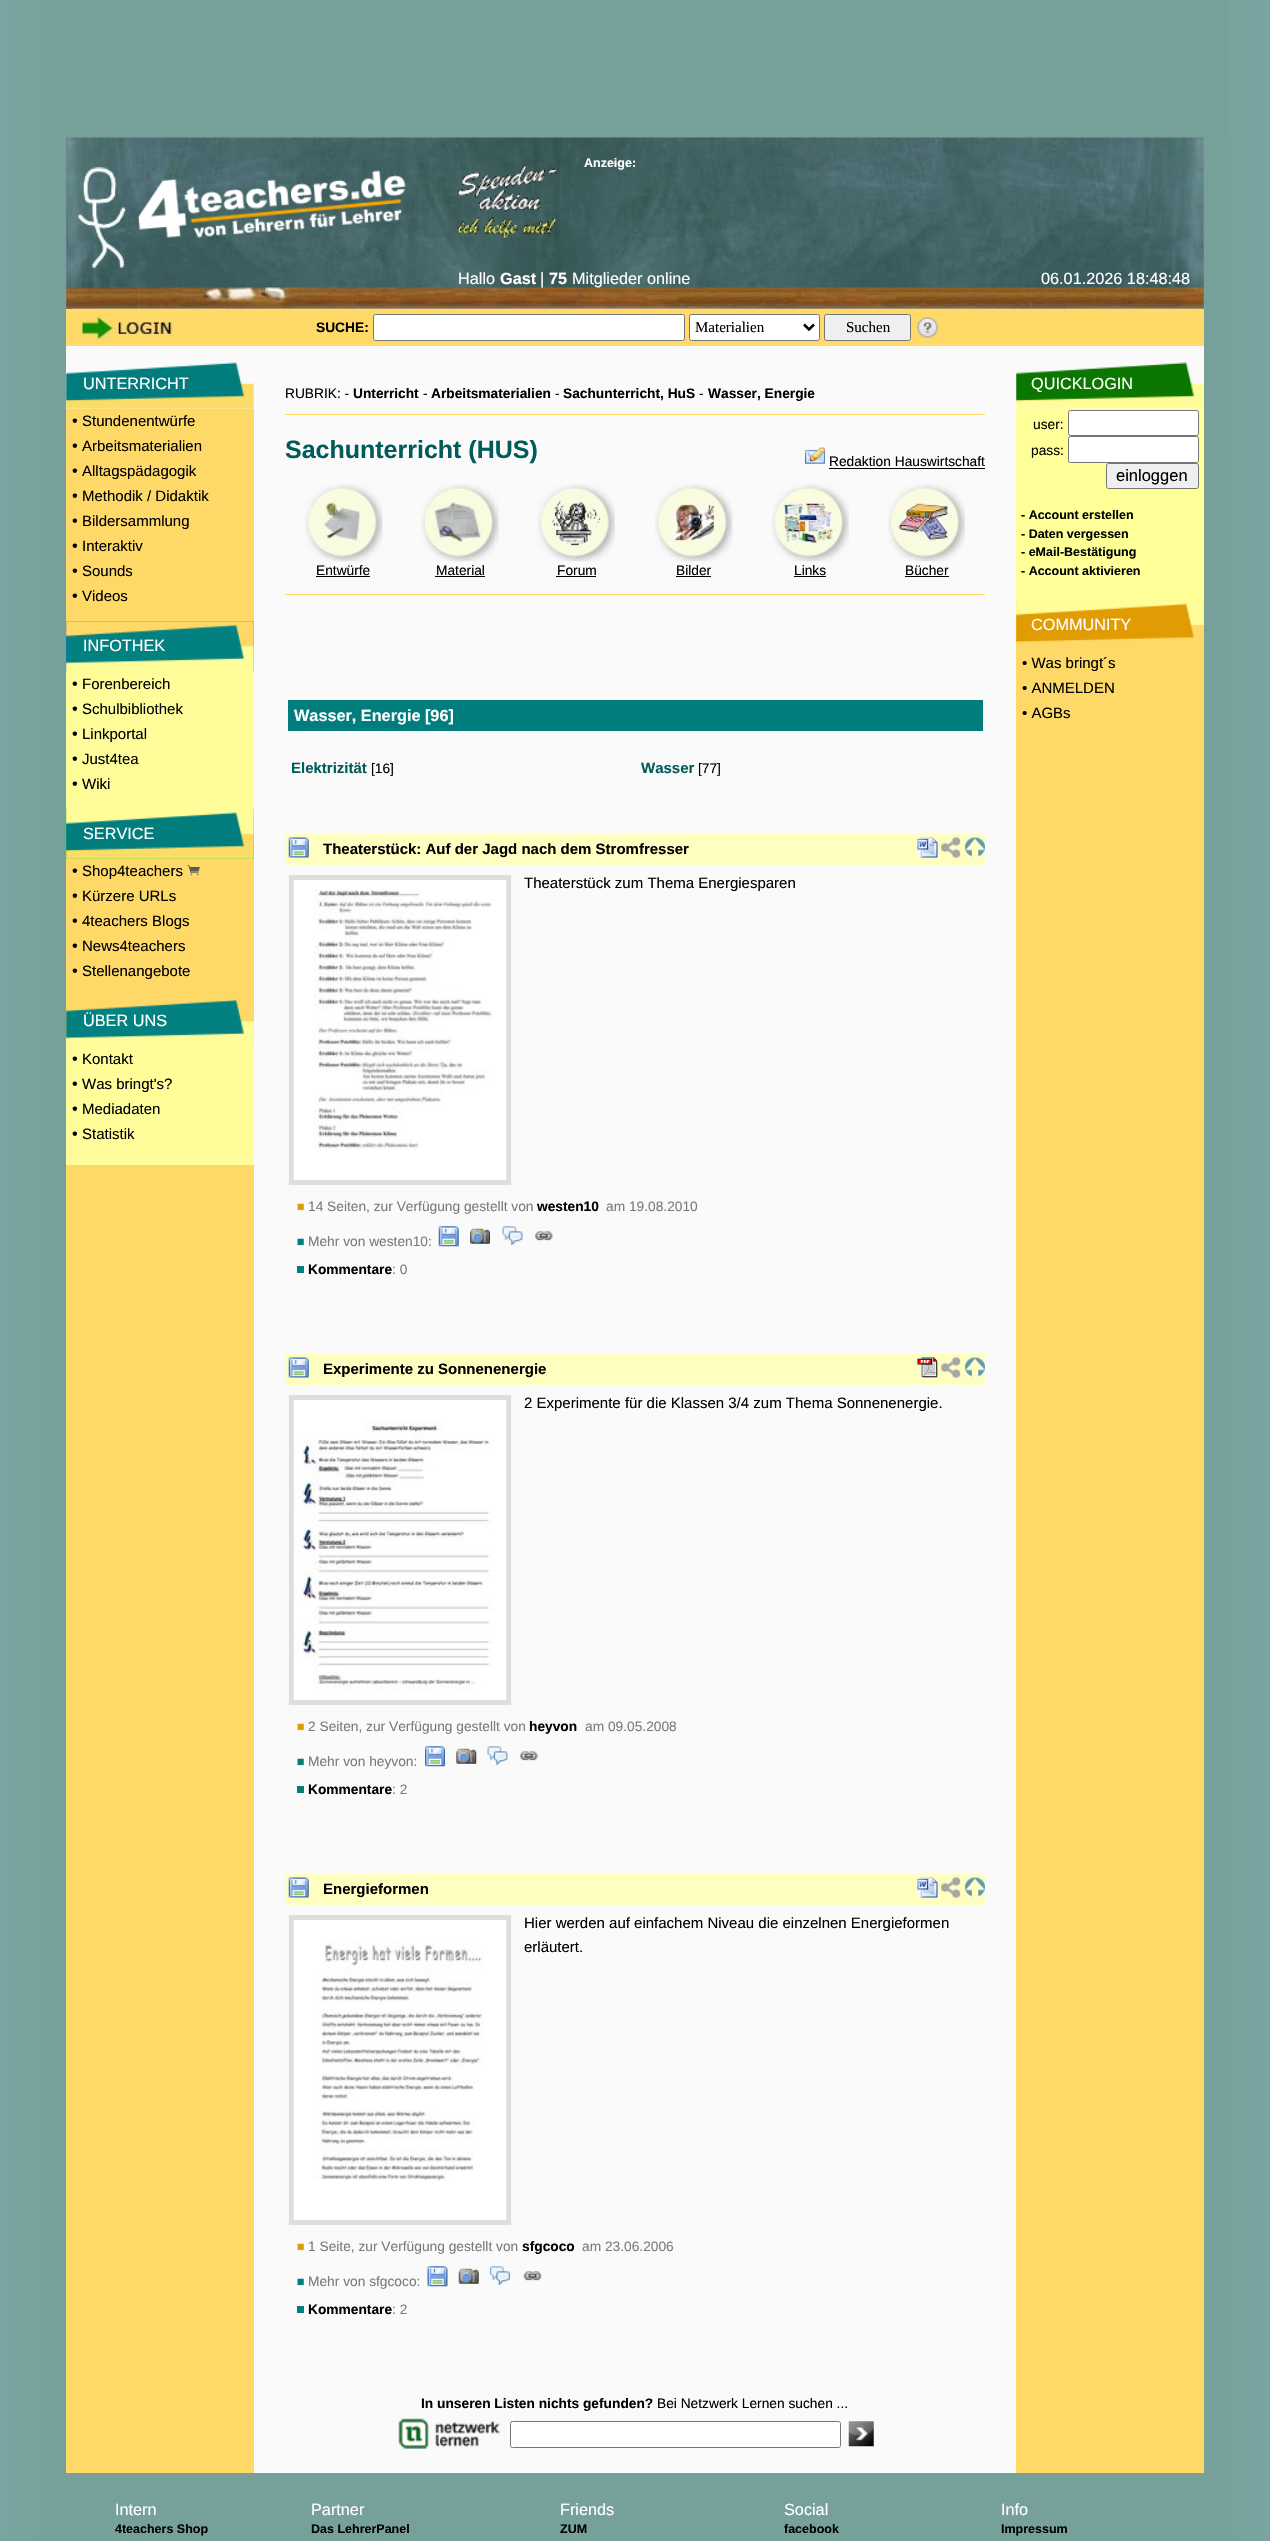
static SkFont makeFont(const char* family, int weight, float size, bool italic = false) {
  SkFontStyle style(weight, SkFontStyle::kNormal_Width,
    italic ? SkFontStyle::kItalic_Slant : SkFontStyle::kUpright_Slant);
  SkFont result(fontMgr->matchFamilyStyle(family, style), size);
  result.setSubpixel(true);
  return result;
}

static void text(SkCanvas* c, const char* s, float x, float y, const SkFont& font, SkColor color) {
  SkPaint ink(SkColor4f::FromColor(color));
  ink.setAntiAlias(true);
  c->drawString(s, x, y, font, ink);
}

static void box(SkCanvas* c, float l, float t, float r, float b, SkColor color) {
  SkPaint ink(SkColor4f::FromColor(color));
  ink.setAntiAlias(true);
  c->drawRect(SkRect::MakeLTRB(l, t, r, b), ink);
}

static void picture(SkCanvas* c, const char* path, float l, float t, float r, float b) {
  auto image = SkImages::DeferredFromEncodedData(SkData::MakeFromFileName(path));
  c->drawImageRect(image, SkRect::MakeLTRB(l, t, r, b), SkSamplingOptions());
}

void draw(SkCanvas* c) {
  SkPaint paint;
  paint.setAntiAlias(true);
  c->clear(0xffffffff);
  picture(c, "img_01.png", 0, 0, 1270, 2541);
  box(c, 41, 0, 1229, 138, 0xff76a19a);
  picture(c, "img_02.png", 66, 137, 1204, 309);
  SkFont face1 = makeFont("Liberation Sans", 700, 12.5f);
  text(c, "Anzeige:", 584, 167, face1, 0xffffffff);
  picture(c, "img_03.png", 810, 155, 877, 170);
  picture(c, "img_04.png", 878, 155, 945, 170);
  picture(c, "img_05.png", 77, 167, 125, 268);
  picture(c, "img_06.png", 137, 170, 406, 238);
  picture(c, "img_07.png", 457, 165, 557, 238);
  SkFont face2 = makeFont("Liberation Sans", 400, 16.25f);
  text(c, "Hallo", 458, 284, face2, 0xffffffff);
  SkFont face3 = makeFont("Liberation Sans", 700, 16.25f);
  text(c, "Gast", 500, 284, face3, 0xffffffff);
  text(c, "|", 540, 284, face2, 0xffffffff);
  text(c, "75", 549, 284, face3, 0xffffffff);
  text(c, "Mitglieder online", 572, 284, face2, 0xffffffff);
  text(c, "06.01.2026 18:48:48", 1041, 284, face2, 0xffffffff);
  box(c, 66, 309, 1204, 346, 0xffffda68);
  picture(c, "img_08.png", 79, 315, 178, 341);
  SkFont face4 = makeFont("Liberation Sans", 700, 13.75f);
  text(c, "SUCHE:", 316, 332, face4, 0xff000000);
  paint.setColor(0xffffffff);
  c->drawRoundRect(SkRect::MakeLTRB(373.5f, 314.5f, 684.5f, 340.5f), 2, 2, paint);
  paint.setStyle(SkPaint::kStroke_Style);
  paint.setStrokeWidth(1);
  paint.setColor(0xff767676);
  c->drawRoundRect(SkRect::MakeLTRB(373.5f, 314.5f, 684.5f, 340.5f), 2, 2, paint);
  paint.setStyle(SkPaint::kFill_Style);
  paint.setColor(0xffffffff);
  c->drawRoundRect(SkRect::MakeLTRB(689.5f, 314.5f, 819.5f, 340.5f), 2, 2, paint);
  paint.setStyle(SkPaint::kStroke_Style);
  paint.setColor(0xff767676);
  c->drawRoundRect(SkRect::MakeLTRB(689.5f, 314.5f, 819.5f, 340.5f), 2, 2, paint);
  paint.setStrokeWidth(2.5f);
  paint.setColor(0xff000000);
  c->drawPath(SkPathBuilder().moveTo(804, 324.5f).lineTo(809, 329.5f).lineTo(814, 324.5f).detach(), paint);
  SkFont face5 = makeFont("Liberation Serif", 400, 15);
  text(c, "Materialien", 695, 332, face5, 0xff000000);
  paint.setStyle(SkPaint::kFill_Style);
  paint.setColor(0xffefefef);
  c->drawRoundRect(SkRect::MakeLTRB(824.5f, 314.5f, 910.5f, 340.5f), 2, 2, paint);
  paint.setStyle(SkPaint::kStroke_Style);
  paint.setStrokeWidth(1);
  paint.setColor(0xff767676);
  c->drawRoundRect(SkRect::MakeLTRB(824.5f, 314.5f, 910.5f, 340.5f), 2, 2, paint);
  text(c, "Suchen", 846, 332, face5, 0xff000000);
  picture(c, "img_09.png", 917, 317, 938, 338);
  box(c, 66, 409, 254, 2473, 0xffffd968);
  box(c, 66, 346, 75, 409, 0xfffafafa);
  picture(c, "img_10.png", 66, 362, 254, 409);
  text(c, "UNTERRICHT", 83, 389, face2, 0xffffffff);
  text(c, "•", 72, 426, face2, 0xff000000);
  SkFont face6 = makeFont("Liberation Sans", 400, 15);
  text(c, "Stundenentwürfe", 82, 426, face6, 0xff000000);
  text(c, "•", 72, 451, face2, 0xff000000);
  text(c, "Arbeitsmaterialien", 82, 451, face6, 0xff000000);
  text(c, "•", 72, 476, face2, 0xff000000);
  text(c, "Alltagspädagogik", 82, 476, face6, 0xff000000);
  text(c, "•", 72, 501, face2, 0xff000000);
  text(c, "Methodik / Didaktik", 82, 501, face6, 0xff000000);
  text(c, "•", 72, 526, face2, 0xff000000);
  text(c, "Bildersammlung", 82, 526, face6, 0xff000000);
  text(c, "•", 72, 551, face2, 0xff000000);
  text(c, "Interaktiv", 82, 551, face6, 0xff000000);
  text(c, "•", 72, 576, face2, 0xff000000);
  text(c, "Sounds", 82, 576, face6, 0xff000000);
  text(c, "•", 72, 601, face2, 0xff000000);
  text(c, "Videos", 82, 601, face6, 0xff000000);
  box(c, 66, 621, 254, 671, 0xff3366ff);
  picture(c, "img_11.png", 66, 621, 254, 671);
  text(c, "INFOTHEK", 83, 651, face2, 0xffffffff);
  box(c, 66, 671, 254, 809, 0xfffffd9a);
  text(c, "•", 72, 689, face2, 0xff000000);
  text(c, "Forenbereich", 82, 689, face6, 0xff000000);
  text(c, "•", 72, 714, face2, 0xff000000);
  text(c, "Schulbibliothek", 82, 714, face6, 0xff000000);
  text(c, "•", 72, 739, face2, 0xff000000);
  text(c, "Linkportal", 82, 739, face6, 0xff000000);
  text(c, "•", 72, 764, face2, 0xff000000);
  text(c, "Just4tea", 82, 764, face6, 0xff000000);
  text(c, "•", 72, 789, face2, 0xff000000);
  text(c, "Wiki", 82, 789, face6, 0xff000000);
  box(c, 66, 809, 254, 859, 0xff33cc33);
  picture(c, "img_12.png", 66, 809, 254, 859);
  text(c, "SERVICE", 83, 839, face2, 0xffffffff);
  text(c, "•", 72, 876, face2, 0xff000000);
  text(c, "Shop4teachers", 82, 876, face6, 0xff000000);
  picture(c, "img_13.png", 187, 865, 200, 876);
  text(c, "•", 72, 901, face2, 0xff000000);
  text(c, "Kürzere URLs", 82, 901, face6, 0xff000000);
  text(c, "•", 72, 926, face2, 0xff000000);
  text(c, "4teachers Blogs", 82, 926, face6, 0xff000000);
  text(c, "•", 72, 951, face2, 0xff000000);
  text(c, "News4teachers", 82, 951, face6, 0xff000000);
  text(c, "•", 72, 976, face2, 0xff000000);
  text(c, "Stellenangebote", 82, 976, face6, 0xff000000);
  picture(c, "img_14.png", 66, 999, 254, 1046);
  text(c, "ÜBER UNS", 83, 1026, face2, 0xffffffff);
  box(c, 66, 1046, 254, 1165, 0xfffffd9a);
  text(c, "•", 72, 1064, face2, 0xff000000);
  text(c, "Kontakt", 82, 1064, face6, 0xff000000);
  text(c, "•", 72, 1089, face2, 0xff000000);
  text(c, "Was bringt's?", 82, 1089, face6, 0xff000000);
  text(c, "•", 72, 1114, face2, 0xff000000);
  text(c, "Mediadaten", 82, 1114, face6, 0xff000000);
  text(c, "•", 72, 1139, face2, 0xff000000);
  text(c, "Statistik", 82, 1139, face6, 0xff000000);
  SkFont face7 = makeFont("Liberation Sans", 400, 13.75f);
  text(c, "RUBRIK: -", 285, 398, face7, 0xff000000);
  text(c, "Unterricht", 353, 398, face4, 0xff000000);
  text(c, "-", 423, 398, face7, 0xff000000);
  text(c, "Arbeitsmaterialien", 431, 398, face4, 0xff000000);
  text(c, "-", 555, 398, face7, 0xff000000);
  text(c, "Sachunterricht, HuS", 563, 398, face4, 0xff000000);
  text(c, "-", 699, 398, face7, 0xff000000);
  text(c, "Wasser, Energie", 708, 398, face4, 0xff000000);
  box(c, 285, 414, 985, 415, 0xffffd968);
  SkFont face8 = makeFont("Liberation Sans", 700, 25);
  text(c, "Sachunterricht (HUS)", 285, 458, face8, 0xff015b5b);
  picture(c, "img_15.png", 805, 447, 825, 464);
  text(c, "Redaktion Hauswirtschaft", 829, 466, face7, 0xff000000);
  box(c, 829, 468, 985, 469, 0xff000000);
  picture(c, "img_16.png", 305, 484, 383, 562);
  picture(c, "img_17.png", 421, 484, 499, 562);
  picture(c, "img_18.png", 537, 484, 615, 562);
  picture(c, "img_19.png", 655, 484, 733, 562);
  picture(c, "img_20.png", 771, 484, 849, 562);
  picture(c, "img_21.png", 887, 484, 965, 562);
  text(c, "Entwürfe", 316, 575, face7, 0xff000000);
  box(c, 316, 576, 370, 577, 0xff000000);
  text(c, "Material", 436, 575, face7, 0xff000000);
  box(c, 435, 576, 485, 577, 0xff000000);
  text(c, "Forum", 557, 575, face7, 0xff000000);
  box(c, 556, 576, 596, 577, 0xff000000);
  text(c, "Bilder", 676, 575, face7, 0xff000000);
  box(c, 676, 576, 711, 577, 0xff000000);
  text(c, "Links", 794, 575, face7, 0xff000000);
  box(c, 794, 576, 826, 577, 0xff000000);
  text(c, "Bücher", 905, 575, face7, 0xff000000);
  box(c, 905, 576, 949, 577, 0xff000000);
  box(c, 285, 594, 985, 595, 0xffffd968);
  box(c, 288, 700, 983, 731, 0xff027d7d);
  text(c, "Wasser, Energie [96]", 294, 721, face3, 0xffffffff);
  SkFont face9 = makeFont("Liberation Sans", 700, 15);
  text(c, "Elektrizität", 291, 773, face9, 0xff015b5b);
  text(c, "[16]", 371, 773, face7, 0xff000000);
  text(c, "Wasser", 641, 773, face9, 0xff015b5b);
  text(c, "[77]", 698, 773, face7, 0xff000000);
  box(c, 285, 834, 985, 865, 0xfffffec1);
  picture(c, "img_22.png", 288, 837, 309, 858);
  text(c, "Theaterstück: Auf der Jagd nach dem Stromfresser", 323, 854, face9, 0xff000000);
  picture(c, "img_23.png", 917, 837, 938, 858);
  picture(c, "img_24.png", 941, 837, 961, 858);
  picture(c, "img_25.png", 965, 837, 985, 858);
  box(c, 289, 875, 511, 1185, 0xffdedede);
  picture(c, "img_26.png", 293, 880, 507, 1180);
  text(c, "Theaterstück zum Thema Energiesparen", 524, 888, face6, 0xff000000);
  picture(c, "img_27.png", 297, 1203, 304, 1211);
  text(c, "14 Seiten, zur Verfügung gestellt von", 308, 1211, face7, 0xff7b7b7b);
  text(c, "westen10", 537, 1211, face4, 0xff000000);
  text(c, "am 19.08.2010", 606, 1211, face7, 0xff7b7b7b);
  picture(c, "img_28.png", 297, 1238, 304, 1246);
  text(c, "Mehr von westen10:", 308, 1246, face7, 0xff7b7b7b);
  picture(c, "img_29.png", 438, 1226, 459, 1247);
  picture(c, "img_30.png", 470, 1228, 490, 1244);
  picture(c, "img_31.png", 502, 1226, 523, 1246);
  picture(c, "img_32.png", 534, 1231, 553, 1241);
  box(c, 297, 1266, 304, 1273, 0xff027d7d);
  text(c, "Kommentare", 308, 1274, face4, 0xff000000);
  text(c, ": 0", 392, 1274, face7, 0xff7b7b7b);
  box(c, 285, 1354, 985, 1385, 0xfffffec1);
  picture(c, "img_22.png", 288, 1357, 309, 1378);
  text(c, "Experimente zu Sonnenenergie", 323, 1374, face9, 0xff000000);
  picture(c, "img_33.png", 917, 1357, 938, 1378);
  picture(c, "img_24.png", 941, 1357, 961, 1378);
  picture(c, "img_25.png", 965, 1357, 985, 1378);
  box(c, 289, 1395, 511, 1705, 0xffdedede);
  picture(c, "img_34.png", 293, 1400, 507, 1700);
  text(c, "2 Experimente für die Klassen 3/4 zum Thema Sonnenenergie.", 524, 1408, face6, 0xff000000);
  picture(c, "img_27.png", 297, 1723, 304, 1731);
  text(c, "2 Seiten, zur Verfügung gestellt von", 308, 1731, face7, 0xff7b7b7b);
  text(c, "heyvon", 529, 1731, face4, 0xff000000);
  text(c, "am 09.05.2008", 585, 1731, face7, 0xff7b7b7b);
  picture(c, "img_28.png", 297, 1758, 304, 1766);
  text(c, "Mehr von heyvon:", 308, 1766, face7, 0xff7b7b7b);
  picture(c, "img_35.png", 425, 1746, 445, 1767);
  picture(c, "img_36.png", 456, 1748, 477, 1764);
  picture(c, "img_31.png", 487, 1746, 508, 1766);
  picture(c, "img_37.png", 519, 1751, 538, 1761);
  box(c, 297, 1786, 304, 1793, 0xff027d7d);
  text(c, "Kommentare", 308, 1794, face4, 0xff000000);
  text(c, ": 2", 392, 1794, face7, 0xff7b7b7b);
  box(c, 285, 1874, 985, 1905, 0xfffffec1);
  picture(c, "img_22.png", 288, 1877, 309, 1898);
  text(c, "Energieformen", 323, 1894, face9, 0xff000000);
  picture(c, "img_23.png", 917, 1877, 938, 1898);
  picture(c, "img_24.png", 941, 1877, 961, 1898);
  picture(c, "img_25.png", 965, 1877, 985, 1898);
  box(c, 289, 1915, 511, 2225, 0xffdedede);
  picture(c, "img_38.png", 293, 1920, 507, 2220);
  text(c, "Hier werden auf einfachem Niveau die einzelnen Energieformen", 524, 1928, face6, 0xff000000);
  text(c, "erläutert.", 524, 1952, face6, 0xff000000);
  picture(c, "img_27.png", 297, 2243, 304, 2251);
  text(c, "1 Seite, zur Verfügung gestellt von", 308, 2251, face7, 0xff7b7b7b);
  text(c, "sfgcoco", 522, 2251, face4, 0xff000000);
  text(c, "am 23.06.2006", 582, 2251, face7, 0xff7b7b7b);
  picture(c, "img_28.png", 297, 2278, 304, 2286);
  text(c, "Mehr von sfgcoco:", 308, 2286, face7, 0xff7b7b7b);
  picture(c, "img_39.png", 427, 2266, 448, 2287);
  picture(c, "img_40.png", 458, 2268, 479, 2284);
  picture(c, "img_41.png", 490, 2266, 510, 2286);
  picture(c, "img_42.png", 523, 2271, 542, 2281);
  box(c, 297, 2306, 304, 2313, 0xff027d7d);
  text(c, "Kommentare", 308, 2314, face4, 0xff000000);
  text(c, ": 2", 392, 2314, face7, 0xff7b7b7b);
  text(c, "In unseren Listen nichts gefunden?", 421, 2408, face4, 0xff000000);
  text(c, "Bei Netzwerk Lernen suchen ...", 657, 2408, face7, 0xff000000);
  picture(c, "img_43.png", 398, 2418, 500, 2449);
  paint.setStyle(SkPaint::kFill_Style);
  paint.setColor(0xffffffff);
  c->drawRoundRect(SkRect::MakeLTRB(510.5f, 2421.5f, 840.5f, 2447.5f), 2, 2, paint);
  paint.setStyle(SkPaint::kStroke_Style);
  paint.setColor(0xff767676);
  c->drawRoundRect(SkRect::MakeLTRB(510.5f, 2421.5f, 840.5f, 2447.5f), 2, 2, paint);
  picture(c, "img_44.png", 848, 2421, 874, 2447);
  box(c, 1016, 600, 1204, 2473, 0xffffd968);
  box(c, 1122, 346, 1204, 409, 0xfffafafa);
  picture(c, "img_45.png", 1016, 362, 1204, 409);
  text(c, "QUICKLOGIN", 1031, 389, face2, 0xffffffff);
  box(c, 1016, 409, 1204, 600, 0xffffff97);
  text(c, "user:", 1033, 429, face7, 0xff000000);
  paint.setStyle(SkPaint::kFill_Style);
  paint.setColor(0xffffffff);
  c->drawRoundRect(SkRect::MakeLTRB(1068.5f, 410.5f, 1198.5f, 435.5f), 2, 2, paint);
  paint.setStyle(SkPaint::kStroke_Style);
  paint.setColor(0xff767676);
  c->drawRoundRect(SkRect::MakeLTRB(1068.5f, 410.5f, 1198.5f, 435.5f), 2, 2, paint);
  text(c, "pass:", 1031, 455, face7, 0xff000000);
  paint.setStyle(SkPaint::kFill_Style);
  paint.setColor(0xffffffff);
  c->drawRoundRect(SkRect::MakeLTRB(1068.5f, 436.5f, 1198.5f, 462.5f), 2, 2, paint);
  paint.setStyle(SkPaint::kStroke_Style);
  paint.setColor(0xff767676);
  c->drawRoundRect(SkRect::MakeLTRB(1068.5f, 436.5f, 1198.5f, 462.5f), 2, 2, paint);
  paint.setStyle(SkPaint::kFill_Style);
  paint.setColor(0xffefefef);
  c->drawRoundRect(SkRect::MakeLTRB(1106.5f, 463.5f, 1198.5f, 488.5f), 2, 2, paint);
  paint.setStyle(SkPaint::kStroke_Style);
  paint.setColor(0xff767676);
  c->drawRoundRect(SkRect::MakeLTRB(1106.5f, 463.5f, 1198.5f, 488.5f), 2, 2, paint);
  SkFont face10 = makeFont("Liberation Sans", 400, 16.5f);
  text(c, "einloggen", 1116, 481, face10, 0xff000000);
  text(c, "- Account erstellen", 1021, 519, face1, 0xff000000);
  text(c, "- Daten vergessen", 1021, 538, face1, 0xff000000);
  text(c, "- eMail-Bestätigung", 1021, 556, face1, 0xff000000);
  text(c, "- Account aktivieren", 1021, 575, face1, 0xff000000);
  picture(c, "img_46.png", 1016, 600, 1204, 650);
  text(c, "COMMUNITY", 1031, 630, face2, 0xffffffff);
  text(c, "• Was bringt´s", 1022, 668, face6, 0xff000000);
  text(c, "• ANMELDEN", 1022, 693, face6, 0xff000000);
  text(c, "• AGBs", 1022, 718, face6, 0xff000000);
  box(c, 70, 2473, 1203, 2541, 0xff76a19a);
  text(c, "Intern", 115, 2515, face2, 0xffffffff);
  text(c, "4teachers Shop", 115, 2533, face1, 0xff000000);
  text(c, "Partner", 311, 2515, face2, 0xffffffff);
  text(c, "Das LehrerPanel", 311, 2533, face1, 0xff000000);
  text(c, "Friends", 560, 2515, face2, 0xffffffff);
  text(c, "ZUM", 560, 2533, face1, 0xff000000);
  text(c, "Social", 784, 2515, face2, 0xffffffff);
  text(c, "facebook", 784, 2533, face1, 0xff000000);
  text(c, "Info", 1001, 2515, face2, 0xffffffff);
  text(c, "Impressum", 1001, 2533, face1, 0xff000000);
}
